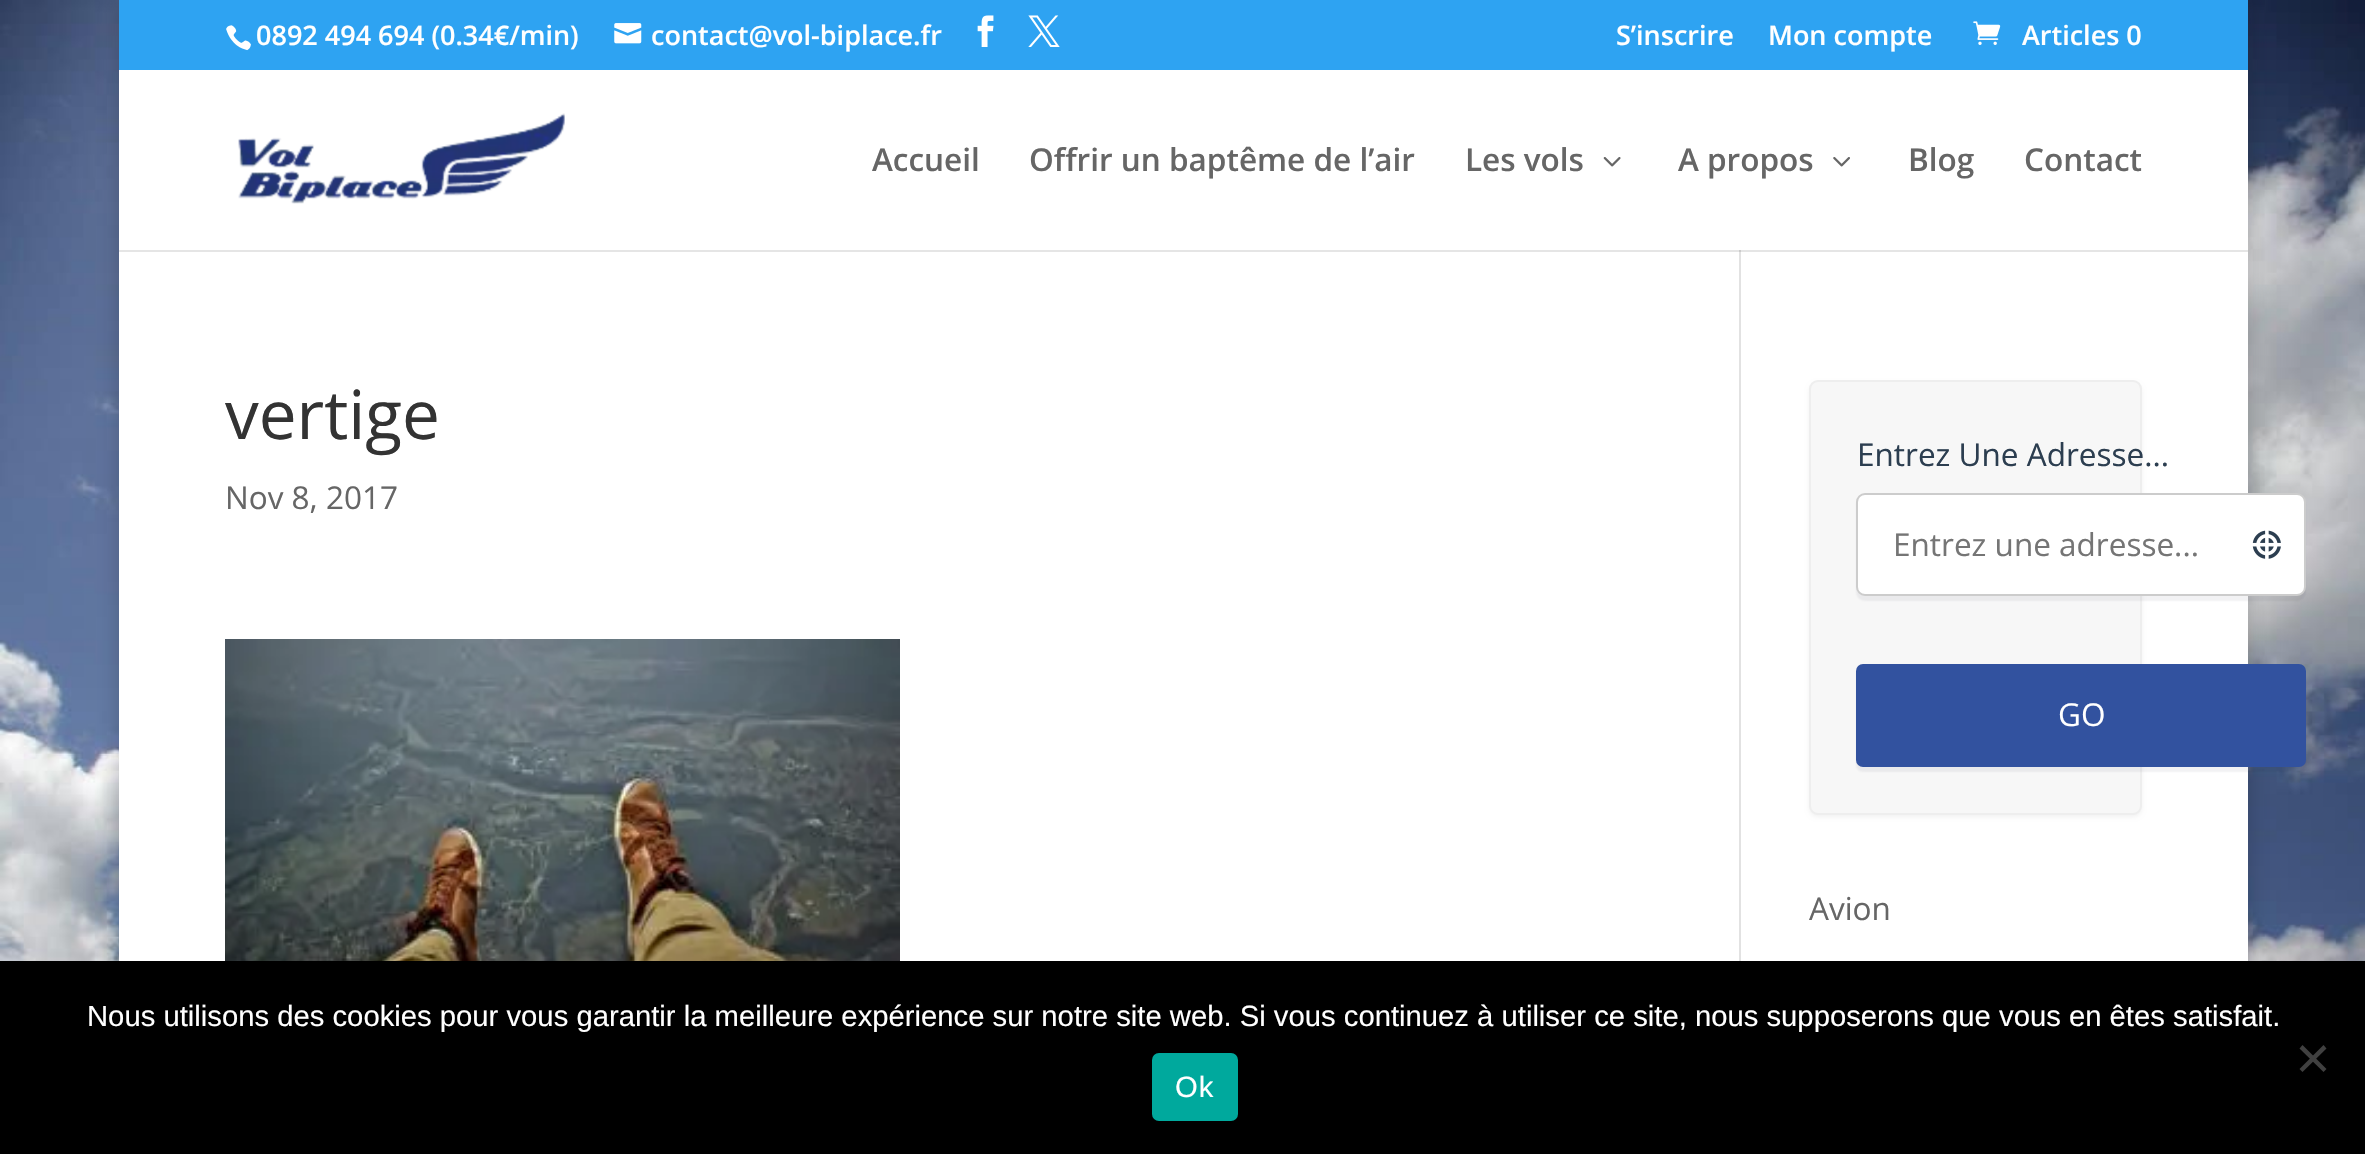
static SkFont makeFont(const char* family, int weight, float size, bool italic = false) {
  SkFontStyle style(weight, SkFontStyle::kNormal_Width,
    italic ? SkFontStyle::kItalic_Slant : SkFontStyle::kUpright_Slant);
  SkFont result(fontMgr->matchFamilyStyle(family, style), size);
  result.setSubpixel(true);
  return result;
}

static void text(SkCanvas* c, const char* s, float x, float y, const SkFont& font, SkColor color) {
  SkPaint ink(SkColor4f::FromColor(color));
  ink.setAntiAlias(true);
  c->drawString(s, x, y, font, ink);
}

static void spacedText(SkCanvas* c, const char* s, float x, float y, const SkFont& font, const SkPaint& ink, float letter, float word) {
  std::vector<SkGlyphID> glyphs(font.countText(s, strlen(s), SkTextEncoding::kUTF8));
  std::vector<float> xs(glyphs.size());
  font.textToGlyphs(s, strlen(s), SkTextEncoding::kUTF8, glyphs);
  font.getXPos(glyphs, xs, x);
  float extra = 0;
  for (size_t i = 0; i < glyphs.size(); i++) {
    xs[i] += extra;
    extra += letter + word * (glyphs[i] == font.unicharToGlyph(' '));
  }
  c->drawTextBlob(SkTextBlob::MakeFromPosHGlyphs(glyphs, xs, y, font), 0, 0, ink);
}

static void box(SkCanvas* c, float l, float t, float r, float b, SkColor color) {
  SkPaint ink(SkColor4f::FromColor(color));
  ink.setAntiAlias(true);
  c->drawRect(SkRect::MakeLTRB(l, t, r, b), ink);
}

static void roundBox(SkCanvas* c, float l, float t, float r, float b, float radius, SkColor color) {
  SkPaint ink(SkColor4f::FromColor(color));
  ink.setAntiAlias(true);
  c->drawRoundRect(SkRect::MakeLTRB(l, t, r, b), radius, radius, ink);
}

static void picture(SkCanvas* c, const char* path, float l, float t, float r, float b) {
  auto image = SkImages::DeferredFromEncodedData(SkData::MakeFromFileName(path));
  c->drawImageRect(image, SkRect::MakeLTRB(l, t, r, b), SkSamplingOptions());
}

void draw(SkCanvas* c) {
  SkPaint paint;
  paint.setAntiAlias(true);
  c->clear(0xffffffff);
  picture(c, "img_01.png", 0, 0, 2365, 961);
  paint.setColor(0x33000000);
  paint.setMaskFilter(SkMaskFilter::MakeBlur(kNormal_SkBlurStyle, 11));
  c->drawRect(SkRect::MakeLTRB(119, 0, 2248, 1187), paint);
  paint.setMaskFilter(nullptr);
  box(c, 119, 0, 2248, 70, 0xff2ea3f2);
  picture(c, "img_02.png", 226, 25, 251, 51);
  SkFont face1 = makeFont("Open Sans", 600, 27);
  text(c, "0892 494 694 (0.34€/min)", 256, 45, face1, 0xffffffff);
  picture(c, "img_03.png", 614, 23, 642, 44);
  text(c, "contact@vol-biplace.fr", 651, 45, face1, 0xffffffff);
  picture(c, "img_04.png", 977, 15, 994, 47);
  picture(c, "img_05.png", 1028, 15, 1060, 47);
  text(c, "S’inscrire", 1616, 45, face1, 0xffffffff);
  text(c, "Mon compte", 1768, 45, face1, 0xffffffff);
  picture(c, "img_06.png", 1973, 21, 2001, 45);
  text(c, "Articles 0", 2022, 45, face1, 0xffffffff);
  box(c, 119, 70, 2248, 961, 0xffffffff);
  box(c, 1739, 250, 1741, 961, 0xffe2e2e2);
  paint.setColor(0x1a000000);
  c->drawPath(SkPathBuilder().moveTo(119, 72).lineTo(119, 252).lineTo(2248, 252).lineTo(2248, 72).lineTo(2248, 250).lineTo(119, 250).close().detach(), paint);
  picture(c, "img_07.png", 238, 113, 565, 204);
  SkFont face2 = makeFont("Open Sans", 600, 31.5f);
  text(c, "Accueil", 872, 171, face2, 0xff666666);
  text(c, "Offrir un baptême de l’air", 1029, 171, face2, 0xff666666);
  text(c, "Les vols", 1465, 171, face2, 0xff666666);
  picture(c, "img_08.png", 1603, 157, 1621, 167);
  text(c, "A propos", 1678, 171, face2, 0xff666666);
  picture(c, "img_09.png", 1833, 157, 1850, 167);
  text(c, "Blog", 1908, 171, face2, 0xff666666);
  text(c, "Contact", 2024, 171, face2, 0xff666666);
  SkFont face3 = makeFont("Open Sans", 400, 67.5f);
  text(c, "vertige", 225, 439, face3, 0xff333333);
  SkFont face4 = makeFont("Open Sans", 400, 31.5f);
  text(c, "Nov 8, 2017", 225, 509, face4, 0xff666666);
  picture(c, "img_10.png", 225, 639, 900, 961);
  paint.setColor(0x0d000000);
  paint.setMaskFilter(SkMaskFilter::MakeBlur(kNormal_SkBlurStyle, 2));
  c->drawRoundRect(SkRect::MakeLTRB(1809, 383, 2142, 817), 9, 9, paint);
  paint.setMaskFilter(nullptr);
  paint.setColor(0xfff7f7f7);
  c->drawRoundRect(SkRect::MakeLTRB(1810, 381, 2141, 814), 8, 8, paint);
  paint.setStyle(SkPaint::kStroke_Style);
  paint.setStrokeWidth(2);
  paint.setColor(0xffeeeeee);
  c->drawRoundRect(SkRect::MakeLTRB(1810, 381, 2141, 814), 8, 8, paint);
  text(c, "Entrez Une Adresse...", 1857, 466, face4, 0xff2c3e50);
  paint.setStyle(SkPaint::kFill_Style);
  paint.setColor(0x0f1c1f3f);
  paint.setMaskFilter(SkMaskFilter::MakeBlur(kNormal_SkBlurStyle, 1));
  c->drawRoundRect(SkRect::MakeLTRB(1856, 497, 2306, 601), 9, 9, paint);
  paint.setMaskFilter(nullptr);
  paint.setColor(0xffffffff);
  c->drawRoundRect(SkRect::MakeLTRB(1857, 494, 2305, 595), 8, 8, paint);
  paint.setStyle(SkPaint::kStroke_Style);
  paint.setColor(0xffcccccc);
  c->drawRoundRect(SkRect::MakeLTRB(1857, 494, 2305, 595), 8, 8, paint);
  text(c, "Entrez une adresse...", 1893, 556, face4, 0xff757575);
  picture(c, "img_11.png", 2252, 530, 2281, 559);
  paint.setStyle(SkPaint::kFill_Style);
  paint.setColor(0x0f1c1f3f);
  paint.setMaskFilter(SkMaskFilter::MakeBlur(kNormal_SkBlurStyle, 1));
  c->drawRoundRect(SkRect::MakeLTRB(1856, 668, 2306, 772), 7, 7, paint);
  paint.setMaskFilter(nullptr);
  roundBox(c, 1856, 664, 2306, 767, 7, 0xff32529f);
  text(c, "GO", 2058, 726, face4, 0xffffffff);
  text(c, "Avion", 1809, 920, face4, 0xff666666);
  box(c, 0, 961, 2365, 1154, 0xff000000);
  SkFont face5 = makeFont("Liberation Sans", 400, 29.25f);
  text(c, "Nous utilisons des cookies pour vous garantir la meilleure expérience sur notre site web. Si vous continuez à utiliser ce site, nous supposerons que vous en êtes satisfait.", 87, 1026, face5, 0xffffffff);
  paint.setColor(0xff404040);
  c->drawPath(SkPathBuilder().moveTo(2323.5f, 1045).lineTo(2326.5f, 1048.5f).lineTo(2302.5f, 1072).lineTo(2299.5f, 1069).close().detach(), paint);
  c->drawPath(SkPathBuilder().moveTo(2299.5f, 1048.5f).lineTo(2302.5f, 1045).lineTo(2326.5f, 1069).lineTo(2323.5f, 1072).close().detach(), paint);
  roundBox(c, 1152, 1053, 1238, 1121, 7, 0xff00a99d);
  paint.setColor(0xffffffff);
  spacedText(c, "Ok", 1175, 1097, face5, paint, 1, 0);
}
